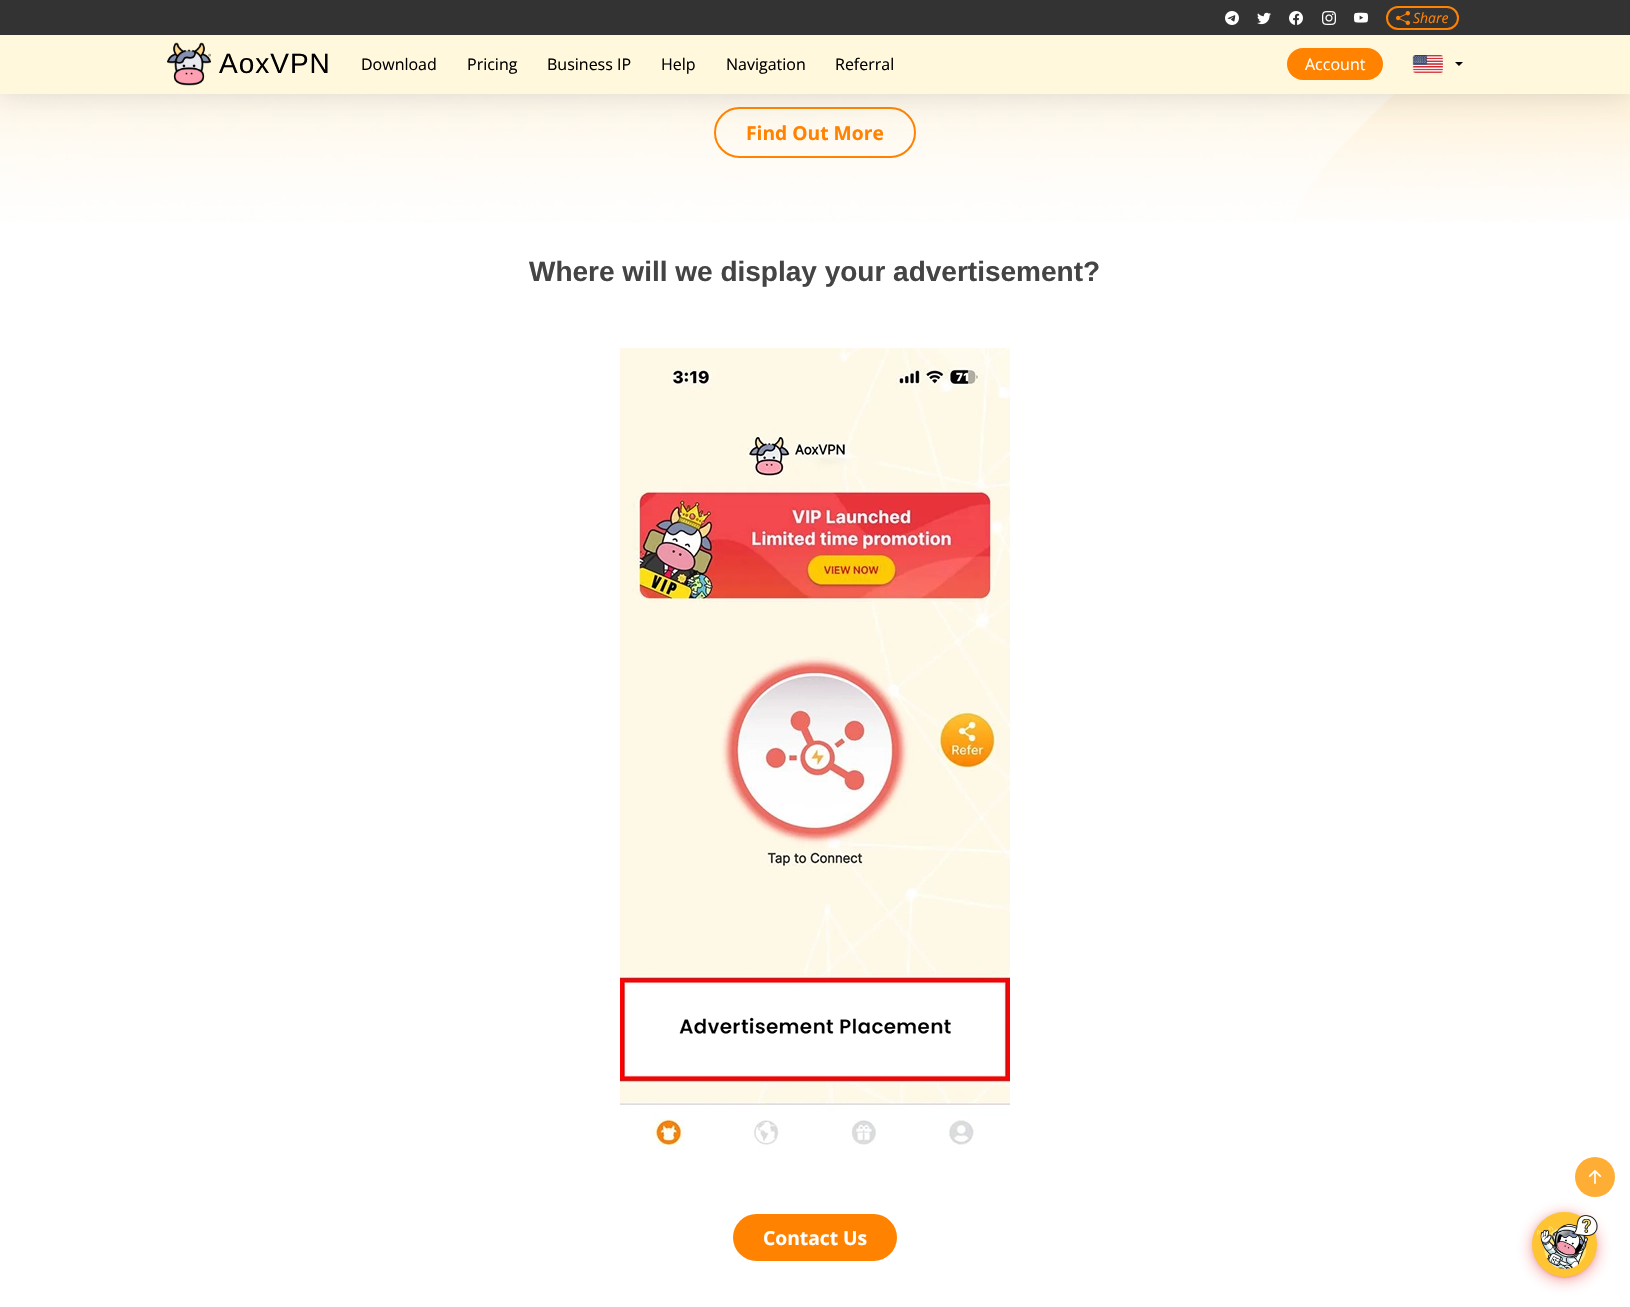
static SkFont makeFont(const char* family, int weight, float size, bool italic = false) {
  SkFontStyle style(weight, SkFontStyle::kNormal_Width,
    italic ? SkFontStyle::kItalic_Slant : SkFontStyle::kUpright_Slant);
  SkFont result(fontMgr->matchFamilyStyle(family, style), size);
  result.setSubpixel(true);
  return result;
}

static void text(SkCanvas* c, const char* s, float x, float y, const SkFont& font, SkColor color) {
  SkPaint ink(SkColor4f::FromColor(color));
  ink.setAntiAlias(true);
  c->drawString(s, x, y, font, ink);
}

static void spacedText(SkCanvas* c, const char* s, float x, float y, const SkFont& font, const SkPaint& ink, float letter, float word) {
  std::vector<SkGlyphID> glyphs(font.countText(s, strlen(s), SkTextEncoding::kUTF8));
  std::vector<float> xs(glyphs.size());
  font.textToGlyphs(s, strlen(s), SkTextEncoding::kUTF8, glyphs);
  font.getXPos(glyphs, xs, x);
  float extra = 0;
  for (size_t i = 0; i < glyphs.size(); i++) {
    xs[i] += extra;
    extra += letter + word * (glyphs[i] == font.unicharToGlyph(' '));
  }
  c->drawTextBlob(SkTextBlob::MakeFromPosHGlyphs(glyphs, xs, y, font), 0, 0, ink);
}

static void box(SkCanvas* c, float l, float t, float r, float b, SkColor color) {
  SkPaint ink(SkColor4f::FromColor(color));
  ink.setAntiAlias(true);
  c->drawRect(SkRect::MakeLTRB(l, t, r, b), ink);
}

static void roundBox(SkCanvas* c, float l, float t, float r, float b, float radius, SkColor color) {
  SkPaint ink(SkColor4f::FromColor(color));
  ink.setAntiAlias(true);
  c->drawRoundRect(SkRect::MakeLTRB(l, t, r, b), radius, radius, ink);
}

static void picture(SkCanvas* c, const char* path, float l, float t, float r, float b) {
  auto image = SkImages::DeferredFromEncodedData(SkData::MakeFromFileName(path));
  c->drawImageRect(image, SkRect::MakeLTRB(l, t, r, b), SkSamplingOptions());
}

void draw(SkCanvas* c) {
  SkPaint paint;
  paint.setAntiAlias(true);
  c->clear(0xffffffff);
  picture(c, "img_09.png", 0, 94, 1630, 222);
  paint.setStyle(SkPaint::kStroke_Style);
  paint.setStrokeWidth(2);
  paint.setColor(0xffff8200);
  c->drawRoundRect(SkRect::MakeLTRB(715, 108, 915, 157), 24.5f, 24.5f, paint);
  paint.setStyle(SkPaint::kFill_Style);
  paint.setColor(0x4d7f89a1);
  paint.setMaskFilter(SkMaskFilter::MakeBlur(kNormal_SkBlurStyle, 15));
  c->drawRect(SkRect::MakeLTRB(0, 34, 1630, 94), paint);
  paint.setMaskFilter(nullptr);
  box(c, 0, 0, 1630, 35, 0xff333333);
  picture(c, "img_01.png", 1225, 11, 1239, 25);
  picture(c, "img_02.png", 1257, 12, 1271, 25);
  picture(c, "img_03.png", 1289, 11, 1303, 25);
  picture(c, "img_04.png", 1322, 11, 1336, 25);
  picture(c, "img_05.png", 1354, 12, 1368, 23);
  paint.setStyle(SkPaint::kStroke_Style);
  paint.setColor(0xffff8200);
  c->drawRoundRect(SkRect::MakeLTRB(1387, 7, 1458, 29), 11, 11, paint);
  picture(c, "img_06.png", 1396, 11, 1410, 25);
  SkFont face1 = makeFont("Open Sans", 400, 14, true);
  text(c, "Share", 1413, 23, face1, 0xffff8200);
  box(c, 0, 35, 1630, 94, 0xfffff8dc);
  picture(c, "img_07.png", 167, 42, 211, 86);
  SkFont face2 = makeFont("Liberation Sans", 400, 28);
  paint.setStyle(SkPaint::kFill_Style);
  paint.setColor(0xff000000);
  spacedText(c, "AoxVPN", 219, 73, face2, paint, 1, 0);
  SkFont face3 = makeFont("Open Sans", 400, 16);
  text(c, "Download", 361, 70, face3, 0xff000000);
  text(c, "Pricing", 467, 70, face3, 0xff000000);
  text(c, "Business IP", 547, 70, face3, 0xff000000);
  text(c, "Help", 661, 70, face3, 0xff000000);
  text(c, "Navigation", 726, 70, face3, 0xff000000);
  text(c, "Referral", 835, 70, face3, 0xff000000);
  roundBox(c, 1287, 48, 1383, 80, 16, 0xffff8200);
  text(c, "Account", 1305, 70, face3, 0xffffffff);
  picture(c, "img_08.png", 1412, 55, 1443, 73);
  c->drawPath(SkPathBuilder().moveTo(1455, 62).lineTo(1463, 62).lineTo(1459, 66).close().detach(), paint);
  SkFont face4 = makeFont("Open Sans", 700, 19.25f);
  text(c, "Find Out More", 746, 140, face4, 0xffff8200);
  SkFont face5 = makeFont("Liberation Sans", 700, 28);
  text(c, "Where will we display your advertisement?", 529, 281, face5, 0xff444444);
  picture(c, "img_10.png", 620, 348, 1010, 1150);
  roundBox(c, 733, 1214, 897, 1261, 23.5f, 0xffff8200);
  text(c, "Contact Us", 763, 1245, face4, 0xffffffff);
  paint.setColor(0x1f000000);
  paint.setMaskFilter(SkMaskFilter::MakeBlur(kNormal_SkBlurStyle, 2.5f));
  c->drawRoundRect(SkRect::MakeLTRB(1532, 1213, 1597, 1278), 32.5f, 32.5f, paint);
  paint.setMaskFilter(nullptr);
  paint.setColor(0x33f64848);
  paint.setMaskFilter(SkMaskFilter::MakeBlur(kNormal_SkBlurStyle, 0.5f));
  c->drawRoundRect(SkRect::MakeLTRB(1534, 1217, 1595, 1278), 30.5f, 30.5f, paint);
  paint.setMaskFilter(nullptr);
  paint.setColor(0xffffae35);
  c->drawCircle(1595, 1177, 20, paint);
  paint.setColor(0x80f64848);
  paint.setMaskFilter(SkMaskFilter::MakeBlur(kNormal_SkBlurStyle, 8));
  c->drawRoundRect(SkRect::MakeLTRB(1532, 1215, 1597, 1280), 32.5f, 32.5f, paint);
  paint.setMaskFilter(nullptr);
  paint.setColor(0xffffc431);
  c->drawCircle(1564.5f, 1244.5f, 32.5f, paint);
  picture(c, "img_11.png", 1537, 1215, 1598, 1269);
  picture(c, "img_12.png", 1588, 1170, 1602, 1184);
}
